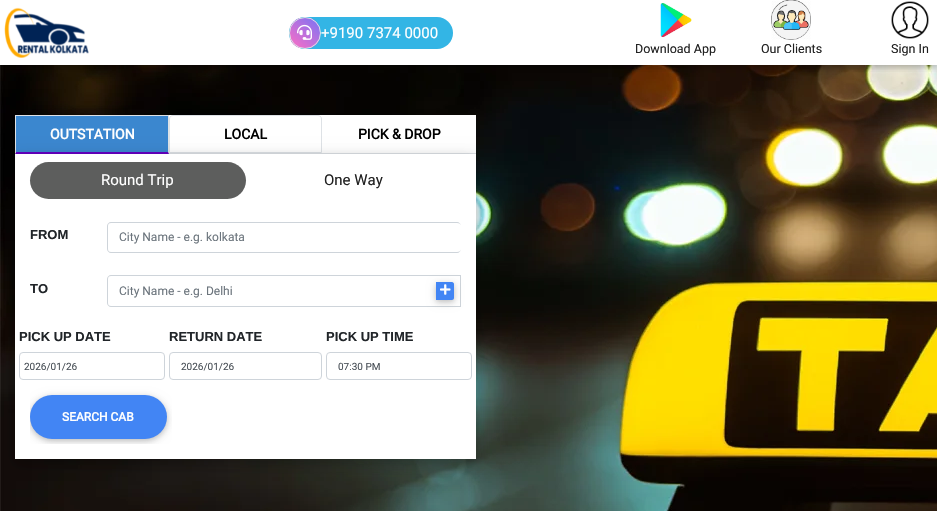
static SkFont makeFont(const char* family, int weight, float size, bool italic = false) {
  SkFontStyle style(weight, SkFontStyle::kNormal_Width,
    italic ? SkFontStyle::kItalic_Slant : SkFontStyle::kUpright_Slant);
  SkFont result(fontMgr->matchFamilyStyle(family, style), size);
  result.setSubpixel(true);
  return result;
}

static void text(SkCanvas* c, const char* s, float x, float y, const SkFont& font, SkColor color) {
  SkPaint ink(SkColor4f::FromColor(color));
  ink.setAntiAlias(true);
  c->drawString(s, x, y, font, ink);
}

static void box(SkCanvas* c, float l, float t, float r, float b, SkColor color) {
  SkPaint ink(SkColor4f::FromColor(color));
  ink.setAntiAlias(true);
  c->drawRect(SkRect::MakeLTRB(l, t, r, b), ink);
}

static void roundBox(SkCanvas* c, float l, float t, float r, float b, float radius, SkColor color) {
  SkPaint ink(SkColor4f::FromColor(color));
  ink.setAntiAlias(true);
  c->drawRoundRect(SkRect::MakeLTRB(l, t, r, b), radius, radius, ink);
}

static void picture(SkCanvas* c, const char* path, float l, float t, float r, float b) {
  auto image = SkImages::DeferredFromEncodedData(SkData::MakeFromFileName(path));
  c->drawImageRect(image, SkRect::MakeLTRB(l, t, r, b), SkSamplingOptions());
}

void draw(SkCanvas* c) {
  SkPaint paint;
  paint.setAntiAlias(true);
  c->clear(0xffffffff);
  picture(c, "img_06.png", 0, 65, 937, 511);
  c->save();
  c->clipRect(SkRect::MakeLTRB(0, 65, 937, 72));
  paint.setColor(0x1f000000);
  paint.setMaskFilter(SkMaskFilter::MakeBlur(kNormal_SkBlurStyle, 5));
  c->drawRect(SkRect::MakeLTRB(0, 2, 937, 67), paint);
  paint.setMaskFilter(nullptr);
  c->restore();
  c->save();
  c->clipRect(SkRect::MakeLTRB(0, 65, 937, 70));
  paint.setColor(0x29000000);
  paint.setMaskFilter(SkMaskFilter::MakeBlur(kNormal_SkBlurStyle, 2.5f));
  c->drawRect(SkRect::MakeLTRB(0, 2, 937, 67), paint);
  paint.setMaskFilter(nullptr);
  c->restore();
  picture(c, "img_01.png", 4, 7, 89, 58);
  roundBox(c, 289, 17, 453, 49, 16, 0xff33b5e5);
  c->save();
  c->clipPath(SkPathBuilder().moveTo(305, 17).cubicTo(314, 17, 321, 24, 321, 33).cubicTo(321, 42, 314, 49, 305, 49).cubicTo(296, 49, 289, 42, 289, 33).cubicTo(289, 24, 296, 17, 305, 17).close().detach(), true);
  {
    const SkColor colors[] = {0xffff6ec4, 0xff7873f5};
    const float stops[] = {0, 1};
    const SkPoint ends[] = {{291, 49}, {319, 17}};
    paint.setShader(SkGradientShader::MakeLinear(ends, colors, stops, 2, SkTileMode::kClamp));
    paint.setAlpha(255);
  }
  c->drawRect(SkRect::MakeLTRB(290, 18, 320, 48), paint);
  c->restore();
  paint.setStyle(SkPaint::kStroke_Style);
  paint.setStrokeWidth(1);
  paint.setShader(nullptr);
  paint.setColor(0xffdee2e6);
  c->drawCircle(305, 33, 15.5f, paint);
  picture(c, "img_02.png", 297, 24, 312, 40);
  SkFont face1 = makeFont("Roboto", 400, 15);
  text(c, "+9190 7374 0000", 321, 38, face1, 0xffffffff);
  picture(c, "img_03.png", 660, 3, 692, 38);
  SkFont face2 = makeFont("Roboto", 400, 12.5f);
  text(c, "Download App", 635, 53, face2, 0xff212121);
  picture(c, "img_04.png", 771, 0, 811, 40);
  text(c, "Our Clients", 761, 53, face2, 0xff212121);
  picture(c, "img_05.png", 891, 1, 929, 39);
  text(c, "Sign In", 891, 53, face2, 0xff212121);
  box(c, 15, 115, 476, 153, 0xffffffff);
  box(c, 15, 153, 476, 154, 0xffdee2e6);
  box(c, 16, 116, 168, 152, 0xff3b87cf);
  box(c, 15, 115, 169, 116, 0xffdee2e6);
  paint.setStyle(SkPaint::kFill_Style);
  c->drawPath(SkPathBuilder().moveTo(169, 115).lineTo(169, 154).lineTo(168, 152).lineTo(168, 116).close().detach(), paint);
  paint.setColor(0xff6500c3);
  c->drawPath(SkPathBuilder().moveTo(169, 154).lineTo(15, 154).lineTo(16, 152).lineTo(168, 152).close().detach(), paint);
  paint.setColor(0xffdee2e6);
  c->drawPath(SkPathBuilder().moveTo(15, 154).lineTo(15, 115).lineTo(16, 116).lineTo(16, 152).close().detach(), paint);
  SkFont face3 = makeFont("Roboto", 700, 14);
  text(c, "OUTSTATION", 50, 139, face3, 0xffffffff);
  paint.setStyle(SkPaint::kStroke_Style);
  c->drawPath(SkPathBuilder().moveTo(173, 115.5f).lineTo(318, 115.5f).cubicTo(320, 115.5f, 321.5f, 117, 321.5f, 119).lineTo(321.5f, 152.5f).lineTo(169.5f, 152.5f).lineTo(169.5f, 119).cubicTo(169.5f, 117, 171, 115.5f, 173, 115.5f).close().detach(), paint);
  text(c, "LOCAL", 224, 139, face3, 0xff000000);
  text(c, "PICK & DROP", 358, 139, face3, 0xff000000);
  paint.setStyle(SkPaint::kFill_Style);
  paint.setColor(0x26000000);
  paint.setMaskFilter(SkMaskFilter::MakeBlur(kNormal_SkBlurStyle, 7.5f));
  c->drawRect(SkRect::MakeLTRB(15, 158, 476, 463), paint);
  paint.setMaskFilter(nullptr);
  paint.setColor(0x2e000000);
  paint.setMaskFilter(SkMaskFilter::MakeBlur(kNormal_SkBlurStyle, 5.5f));
  c->drawRect(SkRect::MakeLTRB(15, 159, 476, 464), paint);
  paint.setMaskFilter(nullptr);
  box(c, 15, 154, 476, 459, 0xffffffff);
  roundBox(c, 30, 162, 246, 199, 18.5f, 0xff5d5e5d);
  text(c, "Round Trip", 101, 185, face1, 0xffffffff);
  text(c, "One Way", 324, 185, face1, 0xff212121);
  SkFont face4 = makeFont("Liberation Sans", 700, 13);
  text(c, "FROM", 30, 239, face4, 0xff212529);
  paint.setColor(0xffced4da);
  c->drawPath(SkPathBuilder(SkPathFillType::kEvenOdd).moveTo(111, 222).lineTo(457, 222).cubicTo(459, 222, 461, 224, 461, 226).lineTo(461, 249).cubicTo(461, 251, 459, 253, 457, 253).lineTo(111, 253).cubicTo(109, 253, 107, 251, 107, 249).lineTo(107, 226).cubicTo(107, 224, 109, 222, 111, 222).close().moveTo(111, 223).lineTo(457, 223).cubicTo(459, 223, 461, 224, 461, 226).lineTo(461, 249).cubicTo(461, 251, 459, 252, 457, 252).lineTo(111, 252).cubicTo(109, 252, 108, 251, 108, 249).lineTo(108, 226).cubicTo(108, 224, 109, 223, 111, 223).close().detach(), paint);
  SkFont face5 = makeFont("Roboto", 400, 12);
  text(c, "City Name - e.g. kolkata", 119, 241, face5, 0xff6c757d);
  text(c, "TO", 30, 293, face4, 0xff212529);
  paint.setStyle(SkPaint::kStroke_Style);
  c->drawRect(SkRect::MakeLTRB(430.5f, 275.5f, 460.5f, 306.5f), paint);
  paint.setStyle(SkPaint::kFill_Style);
  paint.setColor(0xffffffff);
  c->drawPath(SkPathBuilder().moveTo(111, 276).lineTo(431, 276).lineTo(431, 306).lineTo(111, 306).cubicTo(109.5f, 306, 108, 304.5f, 108, 303).lineTo(108, 279).cubicTo(108, 277.5f, 109.5f, 276, 111, 276).close().detach(), paint);
  paint.setColor(0xffced4da);
  c->drawPath(SkPathBuilder(SkPathFillType::kEvenOdd).moveTo(111, 275).lineTo(431, 275).lineTo(431, 307).lineTo(111, 307).cubicTo(109, 307, 107, 305, 107, 303).lineTo(107, 279).cubicTo(107, 277, 109, 275, 111, 275).close().moveTo(111, 276).lineTo(431, 276).lineTo(431, 306).lineTo(111, 306).cubicTo(109, 306, 108, 305, 108, 303).lineTo(108, 279).cubicTo(108, 277, 109, 276, 111, 276).close().detach(), paint);
  text(c, "City Name - e.g. Delhi", 119, 295, face5, 0xff6c757d);
  paint.setColor(0x1f000000);
  paint.setMaskFilter(SkMaskFilter::MakeBlur(kNormal_SkBlurStyle, 5));
  c->drawRoundRect(SkRect::MakeLTRB(436, 284, 454, 302), 2, 2, paint);
  paint.setMaskFilter(nullptr);
  paint.setColor(0x29000000);
  paint.setMaskFilter(SkMaskFilter::MakeBlur(kNormal_SkBlurStyle, 2.5f));
  c->drawRoundRect(SkRect::MakeLTRB(436, 284, 454, 302), 2, 2, paint);
  paint.setMaskFilter(nullptr);
  paint.setColor(0xff4285f4);
  c->drawPath(SkPathBuilder().moveTo(436, 282).lineTo(452, 282).cubicTo(453, 282, 454, 283, 454, 284).lineTo(454, 298).cubicTo(454, 299, 453, 300, 452, 300).lineTo(436, 300).close().detach(), paint);
  picture(c, "img_07.png", 440, 284, 451, 295);
  text(c, "PICK UP DATE", 19, 341, face4, 0xff212529);
  paint.setStyle(SkPaint::kStroke_Style);
  paint.setColor(0xffced4da);
  c->drawRoundRect(SkRect::MakeLTRB(19.5f, 352.5f, 164.5f, 379.5f), 3.5f, 3.5f, paint);
  SkFont face6 = makeFont("Roboto", 400, 10);
  text(c, "2026/01/26", 24, 370, face6, 0xff495057);
  text(c, "RETURN DATE", 169, 341, face4, 0xff212529);
  c->drawRoundRect(SkRect::MakeLTRB(169.5f, 352.5f, 321.5f, 379.5f), 3.5f, 3.5f, paint);
  text(c, "2026/01/26", 181, 370, face6, 0xff495057);
  text(c, "PICK UP TIME", 326, 341, face4, 0xff212529);
  c->drawRoundRect(SkRect::MakeLTRB(326.5f, 352.5f, 471.5f, 379.5f), 3.5f, 3.5f, paint);
  text(c, "07:30 PM", 338, 370, face6, 0xff495057);
  c->save();
  c->clipPath(SkPathBuilder().moveTo(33, 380).lineTo(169, 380).cubicTo(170.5f, 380, 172, 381.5f, 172, 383).lineTo(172, 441).cubicTo(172, 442.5f, 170.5f, 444, 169, 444).lineTo(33, 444).cubicTo(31.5f, 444, 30, 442.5f, 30, 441).lineTo(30, 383).cubicTo(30, 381.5f, 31.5f, 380, 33, 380).close().detach(), true);
  paint.setStyle(SkPaint::kFill_Style);
  paint.setColor(0x1f000000);
  paint.setMaskFilter(SkMaskFilter::MakeBlur(kNormal_SkBlurStyle, 5));
  c->drawRoundRect(SkRect::MakeLTRB(30, 397, 167, 441), 22, 22, paint);
  paint.setMaskFilter(nullptr);
  paint.setColor(0x29000000);
  paint.setMaskFilter(SkMaskFilter::MakeBlur(kNormal_SkBlurStyle, 2.5f));
  c->drawRoundRect(SkRect::MakeLTRB(30, 397, 167, 441), 22, 22, paint);
  paint.setMaskFilter(nullptr);
  c->restore();
  roundBox(c, 30, 395, 167, 439, 22, 0xff4285f4);
  SkFont face7 = makeFont("Roboto", 700, 12);
  text(c, "SEARCH CAB", 62, 421, face7, 0xffffffff);
}
